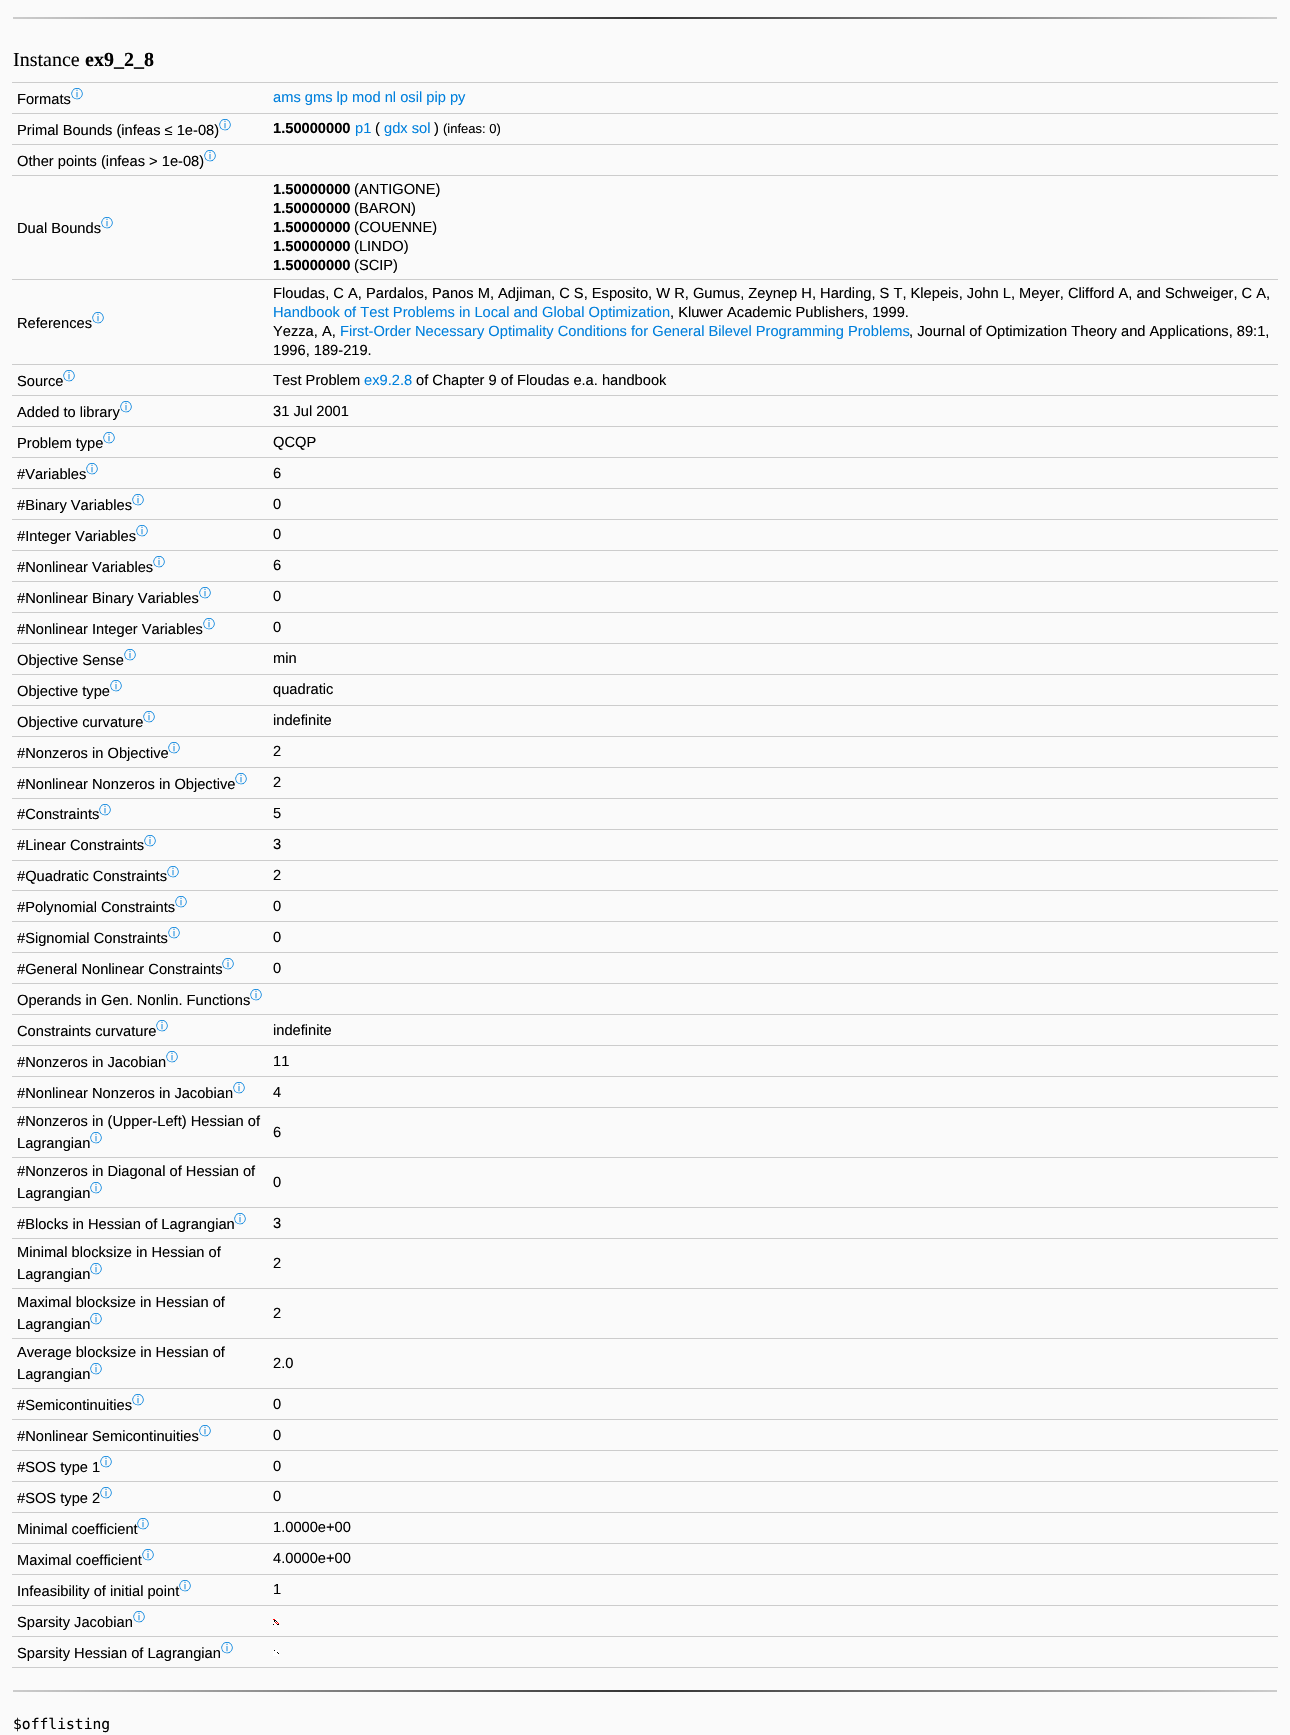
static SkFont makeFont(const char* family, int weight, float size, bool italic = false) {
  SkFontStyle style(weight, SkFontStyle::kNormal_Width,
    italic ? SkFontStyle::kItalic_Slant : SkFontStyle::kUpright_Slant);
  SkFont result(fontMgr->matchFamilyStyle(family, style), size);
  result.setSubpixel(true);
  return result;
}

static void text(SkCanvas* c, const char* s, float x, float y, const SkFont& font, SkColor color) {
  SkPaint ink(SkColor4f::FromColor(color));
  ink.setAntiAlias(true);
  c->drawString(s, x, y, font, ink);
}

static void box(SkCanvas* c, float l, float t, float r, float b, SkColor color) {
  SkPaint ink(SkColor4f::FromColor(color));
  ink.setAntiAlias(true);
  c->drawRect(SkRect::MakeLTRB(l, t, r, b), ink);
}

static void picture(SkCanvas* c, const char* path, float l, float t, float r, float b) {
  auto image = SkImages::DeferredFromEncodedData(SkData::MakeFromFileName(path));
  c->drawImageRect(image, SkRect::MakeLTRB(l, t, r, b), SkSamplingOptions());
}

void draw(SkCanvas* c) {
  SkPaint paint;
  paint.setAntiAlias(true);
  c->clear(0xfffafafa);
  {
    const SkColor colors[] = {0xffcccccc, 0xff333333, 0xffcccccc};
    const float stops[] = {0, 0.5f, 1};
    const SkPoint ends[] = {{13, 18}, {1277, 18}};
    paint.setShader(SkGradientShader::MakeLinear(ends, colors, stops, 3, SkTileMode::kClamp));
    paint.setAlpha(255);
  }
  c->drawRect(SkRect::MakeLTRB(13, 17, 1277, 19), paint);
  SkFont face1 = makeFont("Liberation Serif", 400, 20);
  text(c, "Instance", 13, 66, face1, 0xff000000);
  SkFont face2 = makeFont("Liberation Serif", 700, 20);
  text(c, "ex9_2_8", 85, 66, face2, 0xff000000);
  SkFont face3 = makeFont("Liberation Sans", 400, 14.67f);
  text(c, "Formats", 17, 104, face3, 0xff000000);
  SkFont face4 = makeFont("WenQuanYi Zen Hei", 500, 12);
  text(c, "ⓘ", 71, 98, face4, 0xff0080dd);
  box(c, 12, 82, 1278, 83, 0xffcccccc);
  text(c, "ams gms lp mod nl osil pip py", 273, 102, face3, 0xff0080dd);
  text(c, "Primal Bounds (infeas ≤ 1e-08)", 17, 135, face3, 0xff000000);
  text(c, "ⓘ", 219, 129, face4, 0xff0080dd);
  box(c, 12, 113, 1278, 114, 0xffcccccc);
  SkFont face5 = makeFont("Liberation Sans", 700, 14.67f);
  text(c, "1.50000000", 273, 133, face5, 0xff000000);
  text(c, "p1", 355, 133, face3, 0xff0080dd);
  text(c, "(", 375, 133, face3, 0xff000000);
  text(c, "gdx sol", 384, 133, face3, 0xff0080dd);
  text(c, ")", 434, 133, face3, 0xff000000);
  SkFont face6 = makeFont("Liberation Sans", 400, 13);
  text(c, "(infeas: 0)", 443, 133, face6, 0xff000000);
  box(c, 12, 144, 1278, 145, 0xffcccccc);
  text(c, "Other points (infeas > 1e-08)", 17, 166, face3, 0xff000000);
  text(c, "ⓘ", 204, 160, face4, 0xff0080dd);
  text(c, "Dual Bounds", 17, 233, face3, 0xff000000);
  text(c, "ⓘ", 101, 227, face4, 0xff0080dd);
  box(c, 12, 175, 1278, 176, 0xffcccccc);
  text(c, "1.50000000", 273, 194, face5, 0xff000000);
  text(c, "(ANTIGONE)", 354, 194, face3, 0xff000000);
  text(c, "1.50000000", 273, 213, face5, 0xff000000);
  text(c, "(BARON)", 354, 213, face3, 0xff000000);
  text(c, "1.50000000", 273, 232, face5, 0xff000000);
  text(c, "(COUENNE)", 354, 232, face3, 0xff000000);
  text(c, "1.50000000", 273, 251, face5, 0xff000000);
  text(c, "(LINDO)", 354, 251, face3, 0xff000000);
  text(c, "1.50000000", 273, 270, face5, 0xff000000);
  text(c, "(SCIP)", 354, 270, face3, 0xff000000);
  text(c, "References", 17, 328, face3, 0xff000000);
  text(c, "ⓘ", 92, 322, face4, 0xff0080dd);
  box(c, 12, 279, 1278, 280, 0xffcccccc);
  text(c, "Floudas, C A, Pardalos, Panos M, Adjiman, C S, Esposito, W R, Gumus, Zeynep H, Harding, S T, Klepeis, John L, Meyer, Clifford A, and Schweiger, C A,", 273, 298, face3, 0xff000000);
  text(c, "Handbook of Test Problems in Local and Global Optimization", 273, 317, face3, 0xff0080dd);
  text(c, ", Kluwer Academic Publishers, 1999.", 670, 317, face3, 0xff000000);
  text(c, "Yezza, A,", 273, 336, face3, 0xff000000);
  text(c, "First-Order Necessary Optimality Conditions for General Bilevel Programming Problems", 340, 336, face3, 0xff0080dd);
  text(c, ", Journal of Optimization Theory and Applications, 89:1,", 909, 336, face3, 0xff000000);
  text(c, "1996, 189-219.", 273, 355, face3, 0xff000000);
  text(c, "Source", 17, 386, face3, 0xff000000);
  text(c, "ⓘ", 63, 380, face4, 0xff0080dd);
  box(c, 12, 364, 1278, 365, 0xffcccccc);
  text(c, "Test Problem", 273, 385, face3, 0xff000000);
  text(c, "ex9.2.8", 364, 385, face3, 0xff0080dd);
  text(c, "of Chapter 9 of Floudas e.a. handbook", 416, 385, face3, 0xff000000);
  text(c, "Added to library", 17, 417, face3, 0xff000000);
  text(c, "ⓘ", 120, 411, face4, 0xff0080dd);
  box(c, 12, 395, 1278, 396, 0xffcccccc);
  text(c, "31 Jul 2001", 273, 416, face3, 0xff000000);
  text(c, "Problem type", 17, 448, face3, 0xff000000);
  text(c, "ⓘ", 103, 442, face4, 0xff0080dd);
  box(c, 12, 426, 1278, 427, 0xffcccccc);
  text(c, "QCQP", 273, 447, face3, 0xff000000);
  text(c, "#Variables", 17, 479, face3, 0xff000000);
  text(c, "ⓘ", 86, 473, face4, 0xff0080dd);
  box(c, 12, 457, 1278, 458, 0xffcccccc);
  text(c, "6", 273, 478, face3, 0xff000000);
  text(c, "#Binary Variables", 17, 510, face3, 0xff000000);
  text(c, "ⓘ", 132, 504, face4, 0xff0080dd);
  box(c, 12, 488, 1278, 489, 0xffcccccc);
  text(c, "0", 273, 509, face3, 0xff000000);
  text(c, "#Integer Variables", 17, 541, face3, 0xff000000);
  text(c, "ⓘ", 136, 535, face4, 0xff0080dd);
  box(c, 12, 519, 1278, 520, 0xffcccccc);
  text(c, "0", 273, 539, face3, 0xff000000);
  text(c, "#Nonlinear Variables", 17, 572, face3, 0xff000000);
  text(c, "ⓘ", 153, 566, face4, 0xff0080dd);
  box(c, 12, 550, 1278, 551, 0xffcccccc);
  text(c, "6", 273, 570, face3, 0xff000000);
  text(c, "#Nonlinear Binary Variables", 17, 603, face3, 0xff000000);
  text(c, "ⓘ", 199, 597, face4, 0xff0080dd);
  box(c, 12, 581, 1278, 582, 0xffcccccc);
  text(c, "0", 273, 601, face3, 0xff000000);
  text(c, "#Nonlinear Integer Variables", 17, 634, face3, 0xff000000);
  text(c, "ⓘ", 203, 628, face4, 0xff0080dd);
  box(c, 12, 612, 1278, 613, 0xffcccccc);
  text(c, "0", 273, 632, face3, 0xff000000);
  text(c, "Objective Sense", 17, 665, face3, 0xff000000);
  text(c, "ⓘ", 124, 659, face4, 0xff0080dd);
  box(c, 12, 643, 1278, 644, 0xffcccccc);
  text(c, "min", 273, 663, face3, 0xff000000);
  text(c, "Objective type", 17, 696, face3, 0xff000000);
  text(c, "ⓘ", 110, 690, face4, 0xff0080dd);
  box(c, 12, 674, 1278, 675, 0xffcccccc);
  text(c, "quadratic", 273, 694, face3, 0xff000000);
  text(c, "Objective curvature", 17, 727, face3, 0xff000000);
  text(c, "ⓘ", 143, 721, face4, 0xff0080dd);
  box(c, 12, 705, 1278, 706, 0xffcccccc);
  text(c, "indefinite", 273, 725, face3, 0xff000000);
  text(c, "#Nonzeros in Objective", 17, 758, face3, 0xff000000);
  text(c, "ⓘ", 168, 752, face4, 0xff0080dd);
  box(c, 12, 736, 1278, 737, 0xffcccccc);
  text(c, "2", 273, 756, face3, 0xff000000);
  text(c, "#Nonlinear Nonzeros in Objective", 17, 789, face3, 0xff000000);
  text(c, "ⓘ", 235, 783, face4, 0xff0080dd);
  box(c, 12, 767, 1278, 768, 0xffcccccc);
  text(c, "2", 273, 787, face3, 0xff000000);
  text(c, "#Constraints", 17, 819, face3, 0xff000000);
  text(c, "ⓘ", 99, 814, face4, 0xff0080dd);
  box(c, 12, 798, 1278, 799, 0xffcccccc);
  text(c, "5", 273, 818, face3, 0xff000000);
  text(c, "#Linear Constraints", 17, 850, face3, 0xff000000);
  text(c, "ⓘ", 144, 845, face4, 0xff0080dd);
  box(c, 12, 829, 1278, 830, 0xffcccccc);
  text(c, "3", 273, 849, face3, 0xff000000);
  text(c, "#Quadratic Constraints", 17, 881, face3, 0xff000000);
  text(c, "ⓘ", 167, 876, face4, 0xff0080dd);
  box(c, 12, 860, 1278, 861, 0xffcccccc);
  text(c, "2", 273, 880, face3, 0xff000000);
  text(c, "#Polynomial Constraints", 17, 912, face3, 0xff000000);
  text(c, "ⓘ", 175, 906, face4, 0xff0080dd);
  box(c, 12, 890, 1278, 891, 0xffcccccc);
  text(c, "0", 273, 911, face3, 0xff000000);
  text(c, "#Signomial Constraints", 17, 943, face3, 0xff000000);
  text(c, "ⓘ", 168, 937, face4, 0xff0080dd);
  box(c, 12, 921, 1278, 922, 0xffcccccc);
  text(c, "0", 273, 942, face3, 0xff000000);
  text(c, "#General Nonlinear Constraints", 17, 974, face3, 0xff000000);
  text(c, "ⓘ", 222, 968, face4, 0xff0080dd);
  box(c, 12, 952, 1278, 953, 0xffcccccc);
  text(c, "0", 273, 973, face3, 0xff000000);
  box(c, 12, 983, 1278, 984, 0xffcccccc);
  text(c, "Operands in Gen. Nonlin. Functions", 17, 1005, face3, 0xff000000);
  text(c, "ⓘ", 250, 999, face4, 0xff0080dd);
  text(c, "Constraints curvature", 17, 1036, face3, 0xff000000);
  text(c, "ⓘ", 156, 1030, face4, 0xff0080dd);
  box(c, 12, 1014, 1278, 1015, 0xffcccccc);
  text(c, "indefinite", 273, 1035, face3, 0xff000000);
  text(c, "#Nonzeros in Jacobian", 17, 1067, face3, 0xff000000);
  text(c, "ⓘ", 166, 1061, face4, 0xff0080dd);
  box(c, 12, 1045, 1278, 1046, 0xffcccccc);
  text(c, "11", 273, 1066, face3, 0xff000000);
  text(c, "#Nonlinear Nonzeros in Jacobian", 17, 1098, face3, 0xff000000);
  text(c, "ⓘ", 233, 1092, face4, 0xff0080dd);
  box(c, 12, 1076, 1278, 1077, 0xffcccccc);
  text(c, "4", 273, 1097, face3, 0xff000000);
  text(c, "#Nonzeros in (Upper-Left) Hessian of", 17, 1126, face3, 0xff000000);
  text(c, "Lagrangian", 17, 1148, face3, 0xff000000);
  text(c, "ⓘ", 90, 1142, face4, 0xff0080dd);
  box(c, 12, 1107, 1278, 1108, 0xffcccccc);
  text(c, "6", 273, 1137, face3, 0xff000000);
  text(c, "#Nonzeros in Diagonal of Hessian of", 17, 1176, face3, 0xff000000);
  text(c, "Lagrangian", 17, 1198, face3, 0xff000000);
  text(c, "ⓘ", 90, 1192, face4, 0xff0080dd);
  box(c, 12, 1157, 1278, 1158, 0xffcccccc);
  text(c, "0", 273, 1187, face3, 0xff000000);
  text(c, "#Blocks in Hessian of Lagrangian", 17, 1229, face3, 0xff000000);
  text(c, "ⓘ", 234, 1223, face4, 0xff0080dd);
  box(c, 12, 1207, 1278, 1208, 0xffcccccc);
  text(c, "3", 273, 1228, face3, 0xff000000);
  text(c, "Minimal blocksize in Hessian of", 17, 1257, face3, 0xff000000);
  text(c, "Lagrangian", 17, 1279, face3, 0xff000000);
  text(c, "ⓘ", 90, 1273, face4, 0xff0080dd);
  box(c, 12, 1238, 1278, 1239, 0xffcccccc);
  text(c, "2", 273, 1268, face3, 0xff000000);
  text(c, "Maximal blocksize in Hessian of", 17, 1307, face3, 0xff000000);
  text(c, "Lagrangian", 17, 1329, face3, 0xff000000);
  text(c, "ⓘ", 90, 1323, face4, 0xff0080dd);
  box(c, 12, 1288, 1278, 1289, 0xffcccccc);
  text(c, "2", 273, 1318, face3, 0xff000000);
  text(c, "Average blocksize in Hessian of", 17, 1357, face3, 0xff000000);
  text(c, "Lagrangian", 17, 1379, face3, 0xff000000);
  text(c, "ⓘ", 90, 1373, face4, 0xff0080dd);
  box(c, 12, 1338, 1278, 1339, 0xffcccccc);
  text(c, "2.0", 273, 1368, face3, 0xff000000);
  text(c, "#Semicontinuities", 17, 1410, face3, 0xff000000);
  text(c, "ⓘ", 132, 1404, face4, 0xff0080dd);
  box(c, 12, 1388, 1278, 1389, 0xffcccccc);
  text(c, "0", 273, 1409, face3, 0xff000000);
  text(c, "#Nonlinear Semicontinuities", 17, 1441, face3, 0xff000000);
  text(c, "ⓘ", 199, 1435, face4, 0xff0080dd);
  box(c, 12, 1419, 1278, 1420, 0xffcccccc);
  text(c, "0", 273, 1440, face3, 0xff000000);
  text(c, "#SOS type 1", 17, 1472, face3, 0xff000000);
  text(c, "ⓘ", 100, 1466, face4, 0xff0080dd);
  box(c, 12, 1450, 1278, 1451, 0xffcccccc);
  text(c, "0", 273, 1471, face3, 0xff000000);
  text(c, "#SOS type 2", 17, 1503, face3, 0xff000000);
  text(c, "ⓘ", 100, 1497, face4, 0xff0080dd);
  box(c, 12, 1481, 1278, 1482, 0xffcccccc);
  text(c, "0", 273, 1501, face3, 0xff000000);
  text(c, "Minimal coefficient", 17, 1534, face3, 0xff000000);
  text(c, "ⓘ", 137, 1528, face4, 0xff0080dd);
  box(c, 12, 1512, 1278, 1513, 0xffcccccc);
  text(c, "1.0000e+00", 273, 1532, face3, 0xff000000);
  text(c, "Maximal coefficient", 17, 1565, face3, 0xff000000);
  text(c, "ⓘ", 142, 1559, face4, 0xff0080dd);
  box(c, 12, 1543, 1278, 1544, 0xffcccccc);
  text(c, "4.0000e+00", 273, 1563, face3, 0xff000000);
  text(c, "Infeasibility of initial point", 17, 1596, face3, 0xff000000);
  text(c, "ⓘ", 179, 1590, face4, 0xff0080dd);
  box(c, 12, 1574, 1278, 1575, 0xffcccccc);
  text(c, "1", 273, 1594, face3, 0xff000000);
  box(c, 12, 1605, 1278, 1606, 0xffcccccc);
  picture(c, "img_01.png", 273, 1619, 279, 1625);
  text(c, "Sparsity Jacobian", 17, 1627, face3, 0xff000000);
  text(c, "ⓘ", 133, 1621, face4, 0xff0080dd);
  box(c, 12, 1636, 1278, 1637, 0xffcccccc);
  box(c, 12, 1667, 1278, 1668, 0xffcccccc);
  picture(c, "img_02.png", 273, 1650, 279, 1656);
  text(c, "Sparsity Hessian of Lagrangian", 17, 1658, face3, 0xff000000);
  text(c, "ⓘ", 221, 1652, face4, 0xff0080dd);
  {
    const SkColor colors[] = {0xffcccccc, 0xff333333, 0xffcccccc};
    const float stops[] = {0, 0.5f, 1};
    const SkPoint ends[] = {{13, 1691}, {1277, 1691}};
    paint.setShader(SkGradientShader::MakeLinear(ends, colors, stops, 3, SkTileMode::kClamp));
    paint.setAlpha(255);
  }
  c->drawRect(SkRect::MakeLTRB(13, 1690, 1277, 1692), paint);
  SkFont face7 = makeFont("DejaVu Sans Mono", 400, 14.67f);
  text(c, "$offlisting", 13, 1729, face7, 0xff000000);
}
